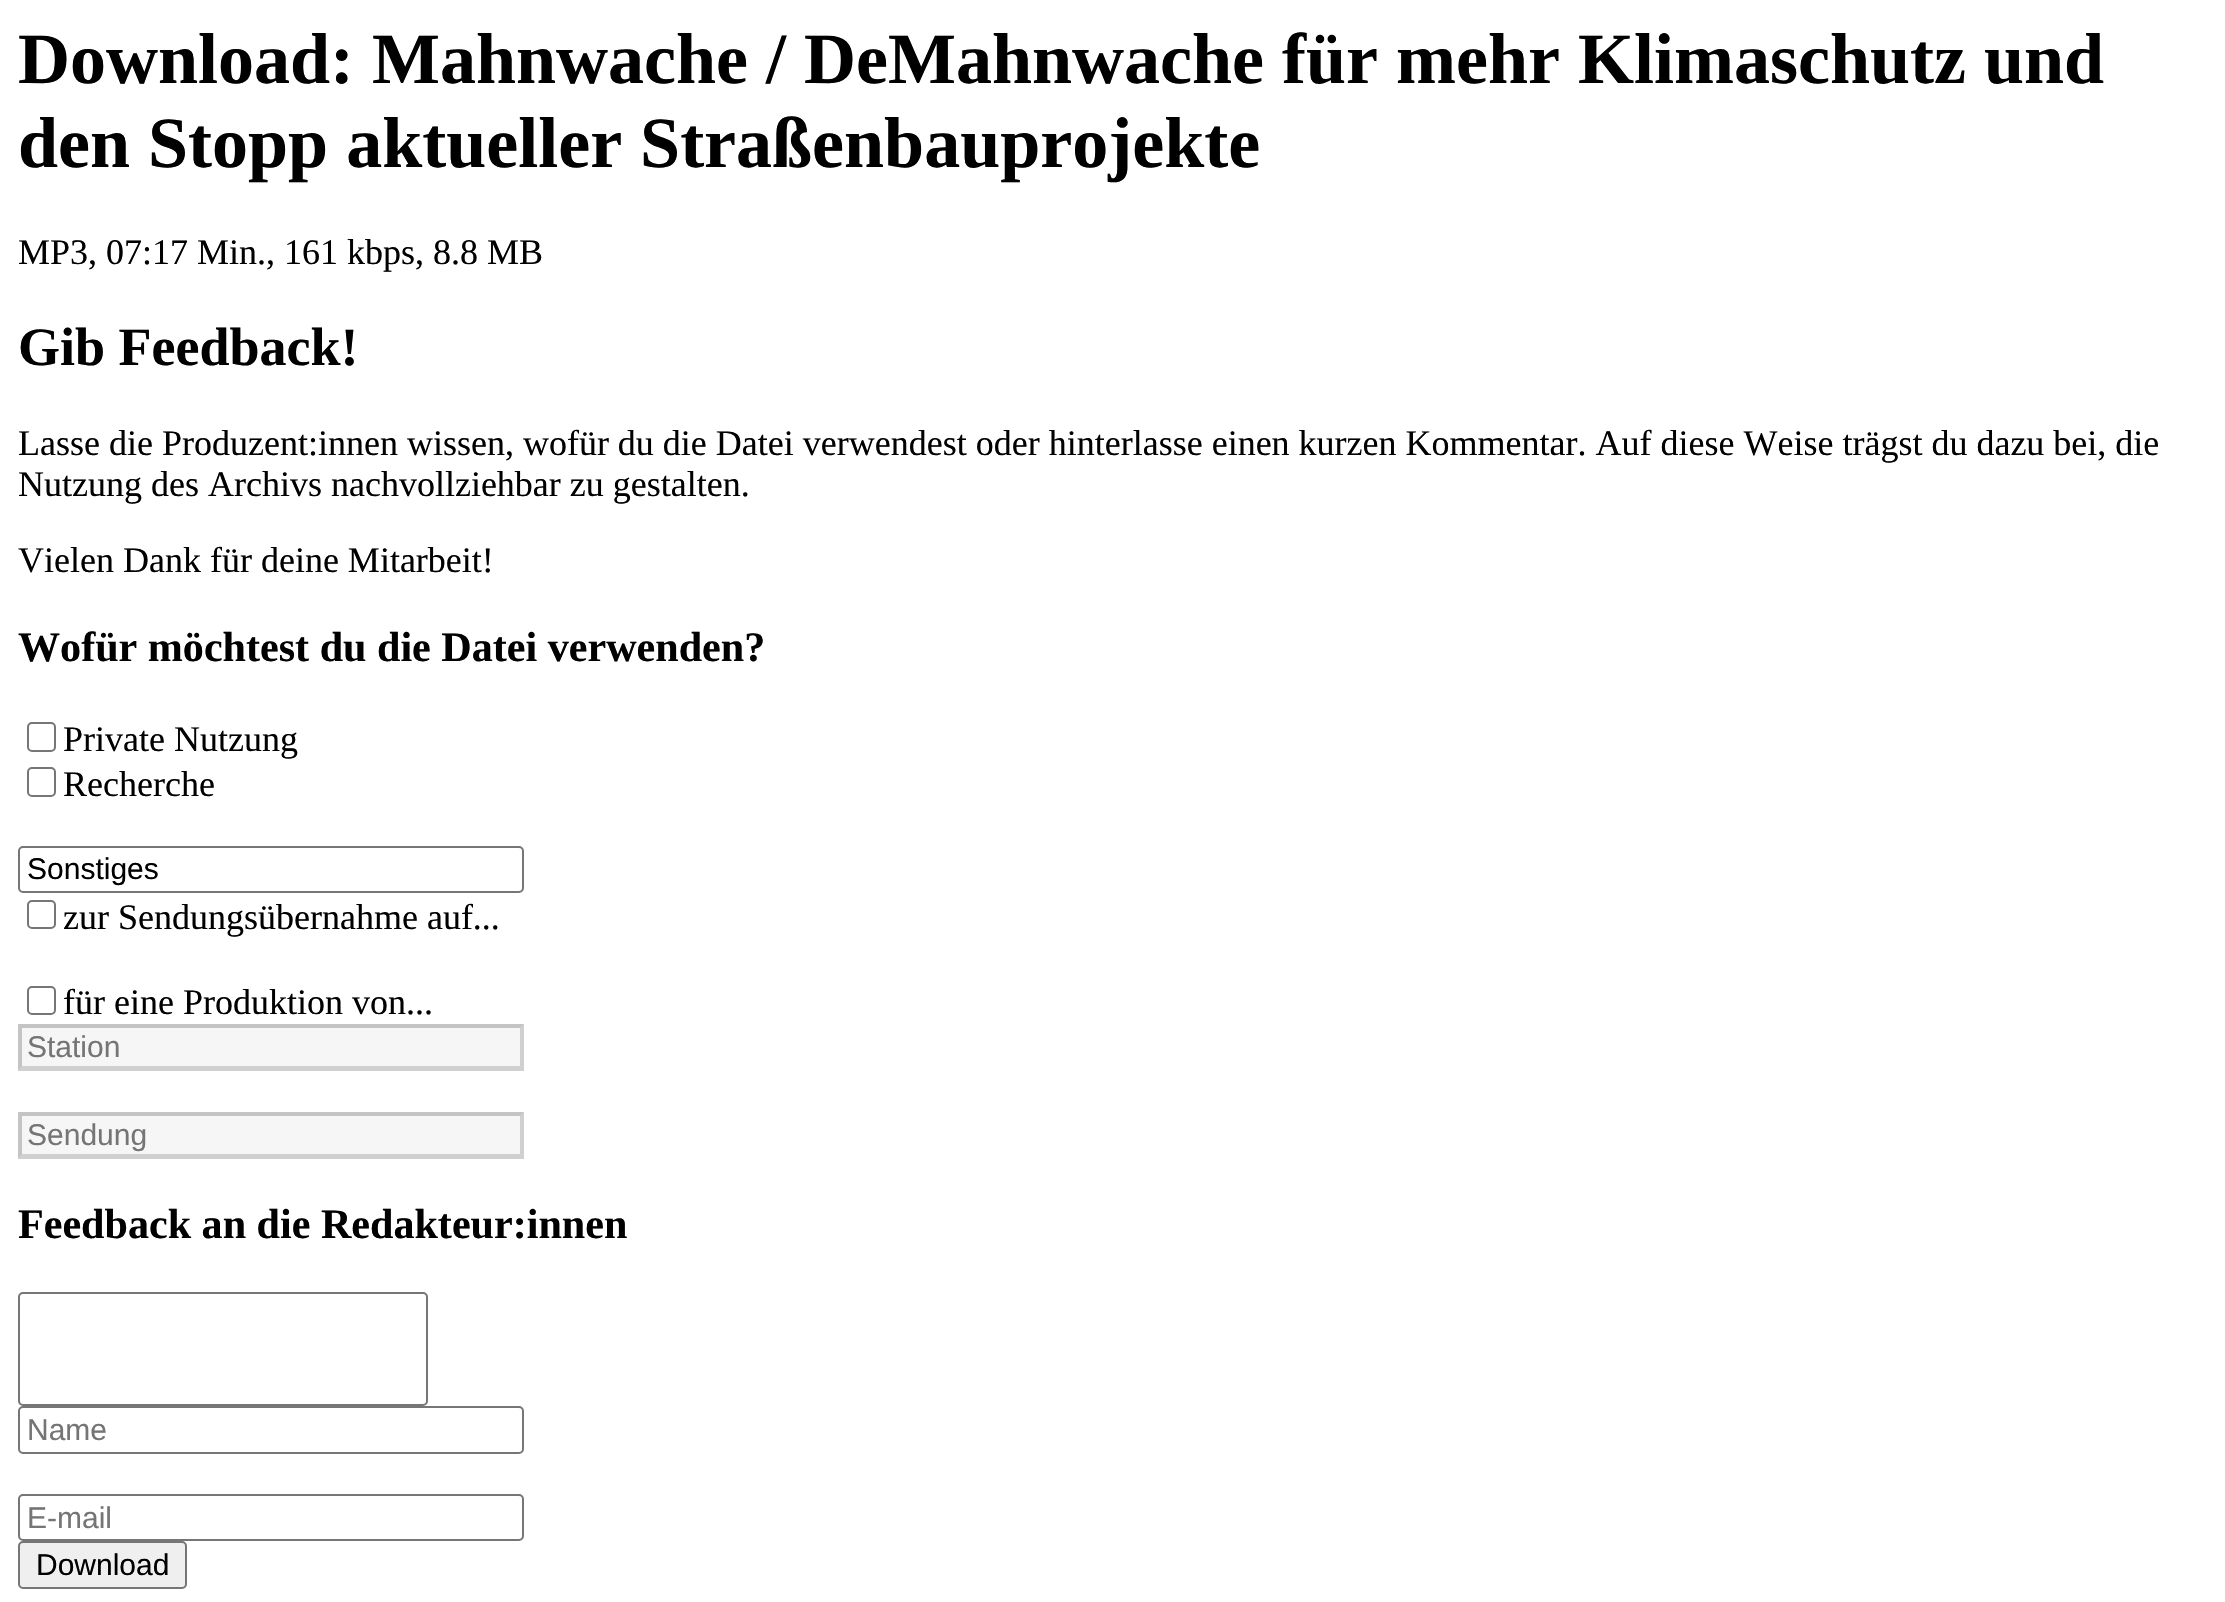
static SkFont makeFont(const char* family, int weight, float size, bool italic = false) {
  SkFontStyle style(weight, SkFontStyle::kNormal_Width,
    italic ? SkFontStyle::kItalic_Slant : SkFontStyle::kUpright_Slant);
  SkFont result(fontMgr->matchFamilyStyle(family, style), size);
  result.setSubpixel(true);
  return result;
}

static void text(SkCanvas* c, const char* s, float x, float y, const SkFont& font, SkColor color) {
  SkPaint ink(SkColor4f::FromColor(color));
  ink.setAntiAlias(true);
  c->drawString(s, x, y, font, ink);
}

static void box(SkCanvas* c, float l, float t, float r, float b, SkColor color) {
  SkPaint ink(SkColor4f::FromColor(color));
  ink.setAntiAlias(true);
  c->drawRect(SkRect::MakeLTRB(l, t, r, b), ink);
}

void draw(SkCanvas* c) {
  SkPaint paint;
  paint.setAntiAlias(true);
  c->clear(0xffffffff);
  SkFont face1 = makeFont("Liberation Serif", 700, 72);
  text(c, "Download: Mahnwache / DeMahnwache für mehr Klimaschutz und", 18, 83, face1, 0xff000000);
  text(c, "den Stopp aktueller Straßenbauprojekte", 18, 167, face1, 0xff000000);
  SkFont face2 = makeFont("Liberation Serif", 400, 36);
  text(c, "MP3, 07:17 Min., 161 kbps, 8.8 MB", 18, 264, face2, 0xff000000);
  SkFont face3 = makeFont("Liberation Serif", 700, 54);
  text(c, "Gib Feedback!", 18, 365, face3, 0xff000000);
  text(c, "Lasse die Produzent:innen wissen, wofür du die Datei verwendest oder hinterlasse einen kurzen Kommentar. Auf diese Weise trägst du dazu bei, die", 18, 455, face2, 0xff000000);
  text(c, "Nutzung des Archivs nachvollziehbar zu gestalten.", 18, 496, face2, 0xff000000);
  text(c, "Vielen Dank für deine Mitarbeit!", 18, 572, face2, 0xff000000);
  SkFont face4 = makeFont("Liberation Serif", 700, 42.1f);
  text(c, "Wofür möchtest du die Datei verwenden?", 18, 661, face4, 0xff000000);
  paint.setStyle(SkPaint::kStroke_Style);
  paint.setStrokeWidth(2);
  paint.setColor(0xff767676);
  c->drawRoundRect(SkRect::MakeLTRB(28, 723, 55, 751), 4, 4, paint);
  text(c, "Private Nutzung", 63, 751, face2, 0xff000000);
  c->drawRoundRect(SkRect::MakeLTRB(28, 768, 55, 796), 4, 4, paint);
  text(c, "Recherche", 63, 796, face2, 0xff000000);
  c->drawRoundRect(SkRect::MakeLTRB(19, 847, 523, 892), 4, 4, paint);
  SkFont face5 = makeFont("Liberation Sans", 400, 30);
  text(c, "Sonstiges", 27, 879, face5, 0xff000000);
  c->drawRoundRect(SkRect::MakeLTRB(28, 901, 55, 928), 4, 4, paint);
  text(c, "zur Sendungsübernahme auf...", 63, 929, face2, 0xff000000);
  c->drawRoundRect(SkRect::MakeLTRB(28, 987, 55, 1014), 4, 4, paint);
  text(c, "für eine Produktion von...", 63, 1014, face2, 0xff000000);
  box(c, 18, 1024, 524, 1071, 0xfff6f6f6);
  paint.setStyle(SkPaint::kFill_Style);
  paint.setColor(0xffc4c4c4);
  c->drawPath(SkPathBuilder().moveTo(18, 1024).lineTo(524, 1024).lineTo(520, 1028).lineTo(22, 1028).close().detach(), paint);
  paint.setColor(0x4d767676);
  c->drawPath(SkPathBuilder().moveTo(524, 1024).lineTo(524, 1071).lineTo(520, 1066).lineTo(520, 1028).close().detach(), paint);
  c->drawPath(SkPathBuilder().moveTo(524, 1071).lineTo(18, 1071).lineTo(22, 1066).lineTo(520, 1066).close().detach(), paint);
  paint.setColor(0x4d4f4f4f);
  c->drawPath(SkPathBuilder().moveTo(18, 1071).lineTo(18, 1024).lineTo(22, 1028).lineTo(22, 1066).close().detach(), paint);
  text(c, "Station", 27, 1057, face5, 0xff757575);
  box(c, 18, 1112, 524, 1159, 0xfff6f6f6);
  paint.setColor(0xffc4c4c4);
  c->drawPath(SkPathBuilder().moveTo(18, 1112).lineTo(524, 1112).lineTo(520, 1116).lineTo(22, 1116).close().detach(), paint);
  paint.setColor(0x4d767676);
  c->drawPath(SkPathBuilder().moveTo(524, 1112).lineTo(524, 1159).lineTo(520, 1154).lineTo(520, 1116).close().detach(), paint);
  c->drawPath(SkPathBuilder().moveTo(524, 1159).lineTo(18, 1159).lineTo(22, 1154).lineTo(520, 1154).close().detach(), paint);
  paint.setColor(0x4d4f4f4f);
  c->drawPath(SkPathBuilder().moveTo(18, 1159).lineTo(18, 1112).lineTo(22, 1116).lineTo(22, 1154).close().detach(), paint);
  text(c, "Sendung", 27, 1145, face5, 0xff757575);
  text(c, "Feedback an die Redakteur:innen", 18, 1238, face4, 0xff000000);
  paint.setStyle(SkPaint::kStroke_Style);
  paint.setColor(0xff767676);
  c->drawRoundRect(SkRect::MakeLTRB(19, 1293, 427, 1405), 4, 4, paint);
  c->drawRoundRect(SkRect::MakeLTRB(19, 1407, 523, 1453), 4, 4, paint);
  text(c, "Name", 27, 1440, face5, 0xff757575);
  c->drawRoundRect(SkRect::MakeLTRB(19, 1495, 523, 1540), 4, 4, paint);
  text(c, "E-mail", 27, 1528, face5, 0xff757575);
  paint.setStyle(SkPaint::kFill_Style);
  paint.setColor(0xffefefef);
  c->drawRoundRect(SkRect::MakeLTRB(19, 1542, 186, 1588), 4, 4, paint);
  paint.setStyle(SkPaint::kStroke_Style);
  paint.setColor(0xff767676);
  c->drawRoundRect(SkRect::MakeLTRB(19, 1542, 186, 1588), 4, 4, paint);
  text(c, "Download", 36, 1575, face5, 0xff000000);
}
